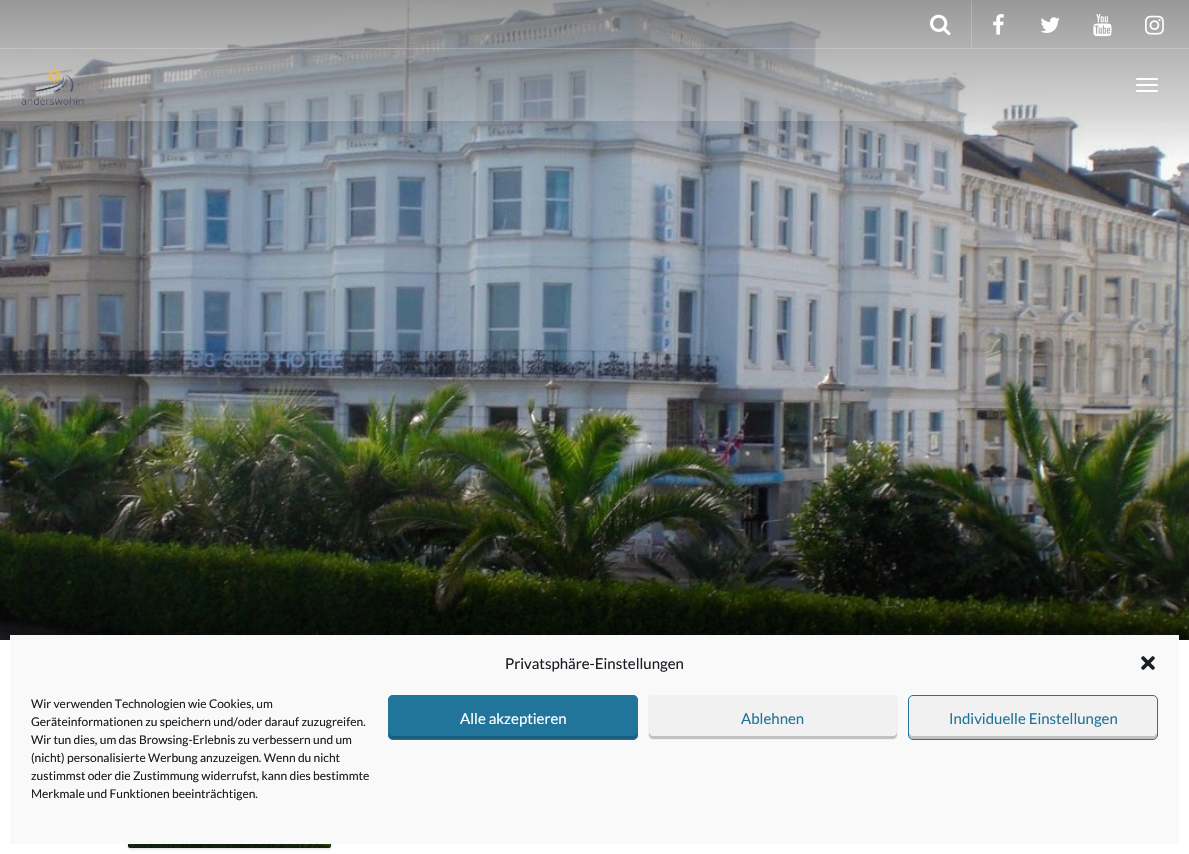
static SkFont makeFont(const char* family, int weight, float size, bool italic = false) {
  SkFontStyle style(weight, SkFontStyle::kNormal_Width,
    italic ? SkFontStyle::kItalic_Slant : SkFontStyle::kUpright_Slant);
  SkFont result(fontMgr->matchFamilyStyle(family, style), size);
  result.setSubpixel(true);
  return result;
}

static void text(SkCanvas* c, const char* s, float x, float y, const SkFont& font, SkColor color) {
  SkPaint ink(SkColor4f::FromColor(color));
  ink.setAntiAlias(true);
  c->drawString(s, x, y, font, ink);
}

static void box(SkCanvas* c, float l, float t, float r, float b, SkColor color) {
  SkPaint ink(SkColor4f::FromColor(color));
  ink.setAntiAlias(true);
  c->drawRect(SkRect::MakeLTRB(l, t, r, b), ink);
}

static void roundBox(SkCanvas* c, float l, float t, float r, float b, float radius, SkColor color) {
  SkPaint ink(SkColor4f::FromColor(color));
  ink.setAntiAlias(true);
  c->drawRoundRect(SkRect::MakeLTRB(l, t, r, b), radius, radius, ink);
}

static void picture(SkCanvas* c, const char* path, float l, float t, float r, float b) {
  auto image = SkImages::DeferredFromEncodedData(SkData::MakeFromFileName(path));
  c->drawImageRect(image, SkRect::MakeLTRB(l, t, r, b), SkSamplingOptions());
}

void draw(SkCanvas* c) {
  SkPaint paint;
  paint.setAntiAlias(true);
  c->clear(0xffffffff);
  picture(c, "img_01.png", 0, 0, 1189, 640);
  box(c, 0, 0, 1189, 121, 0x4dd8d8d8);
  box(c, 0, 48, 1189, 49, 0x33ffffff);
  box(c, 971, 1, 972, 47, 0x33ffffff);
  picture(c, "img_02.png", 930, 14, 951, 36);
  picture(c, "img_03.png", 993, 14, 1004, 35);
  picture(c, "img_04.png", 1040, 17, 1060, 33);
  picture(c, "img_05.png", 1093, 14, 1112, 37);
  picture(c, "img_06.png", 1145, 15, 1164, 35);
  picture(c, "img_07.png", 21, 68, 84, 105);
  roundBox(c, 1136, 78, 1158, 80, 1, 0xffffffff);
  roundBox(c, 1136, 84, 1158, 86, 1, 0xffffffff);
  roundBox(c, 1136, 90, 1158, 92, 1, 0xffffffff);
  paint.setColor(0x26000000);
  paint.setMaskFilter(SkMaskFilter::MakeBlur(kNormal_SkBlurStyle, 1.5f));
  c->drawRoundRect(SkRect::MakeLTRB(128, 705, 331, 849), 2, 2, paint);
  paint.setMaskFilter(nullptr);
  box(c, 10, 635, 1179, 844, 0xfff9f9f9);
  SkFont face1 = makeFont("Lato", 400, 15);
  text(c, "Privatsphäre-Einstellungen", 505, 669, face1, 0xff191e23);
  picture(c, "img_08.png", 1141, 656, 1155, 670);
  SkFont face2 = makeFont("Lato", 400, 12);
  text(c, "Wir verwenden Technologien wie Cookies, um", 31, 708, face2, 0xff191e23);
  text(c, "Geräteinformationen zu speichern und/oder darauf zuzugreifen.", 31, 726, face2, 0xff191e23);
  text(c, "Wir tun dies, um das Browsing-Erlebnis zu verbessern und um", 31, 744, face2, 0xff191e23);
  text(c, "(nicht) personalisierte Werbung anzuzeigen. Wenn du nicht", 31, 762, face2, 0xff191e23);
  text(c, "zustimmst oder die Zustimmung widerrufst, kann dies bestimmte", 31, 780, face2, 0xff191e23);
  text(c, "Merkmale und Funktionen beeinträchtigen.", 31, 798, face2, 0xff191e23);
  roundBox(c, 388, 695, 638, 740, 5, 0xff21759b);
  paint.setColor(0xff1a5e7c);
  c->drawPath(SkPathBuilder().moveTo(389, 732).lineTo(389, 735).cubicTo(389, 737, 391, 739, 393, 739).lineTo(633, 739).cubicTo(635, 739, 637, 737, 637, 735).lineTo(637, 732).cubicTo(637, 734, 635, 736, 633, 736).lineTo(393, 736).cubicTo(391, 736, 389, 734, 389, 732).close().detach(), paint);
  paint.setStyle(SkPaint::kStroke_Style);
  paint.setStrokeWidth(1);
  paint.setColor(0xff21759b);
  c->drawRoundRect(SkRect::MakeLTRB(388.5f, 695.5f, 637.5f, 739.5f), 4.5f, 4.5f, paint);
  text(c, "Alle akzeptieren", 460, 724, face1, 0xffffffff);
  roundBox(c, 648, 695, 898, 740, 5, 0xfff1f1f1);
  paint.setStyle(SkPaint::kFill_Style);
  paint.setColor(0xffc1c1c1);
  c->drawPath(SkPathBuilder().moveTo(649, 732).lineTo(649, 735).cubicTo(649, 737, 651, 739, 653, 739).lineTo(893, 739).cubicTo(895, 739, 897, 737, 897, 735).lineTo(897, 732).cubicTo(897, 734, 895, 736, 893, 736).lineTo(653, 736).cubicTo(651, 736, 649, 734, 649, 732).close().detach(), paint);
  paint.setStyle(SkPaint::kStroke_Style);
  paint.setColor(0xfff1f1f1);
  c->drawRoundRect(SkRect::MakeLTRB(648.5f, 695.5f, 897.5f, 739.5f), 4.5f, 4.5f, paint);
  text(c, "Ablehnen", 741, 724, face1, 0xff21759b);
  roundBox(c, 908, 695, 1158, 740, 5, 0xfff1f1f1);
  paint.setStyle(SkPaint::kFill_Style);
  paint.setColor(0xffc1c1c1);
  c->drawPath(SkPathBuilder().moveTo(909, 732).lineTo(909, 735).cubicTo(909, 737, 911, 739, 913, 739).lineTo(1153, 739).cubicTo(1155, 739, 1157, 737, 1157, 735).lineTo(1157, 732).cubicTo(1157, 734, 1155, 736, 1153, 736).lineTo(913, 736).cubicTo(911, 736, 909, 734, 909, 732).close().detach(), paint);
  paint.setStyle(SkPaint::kStroke_Style);
  paint.setColor(0xff21759b);
  c->drawRoundRect(SkRect::MakeLTRB(908.5f, 695.5f, 1157.5f, 739.5f), 4.5f, 4.5f, paint);
  text(c, "Individuelle Einstellungen", 949, 724, face1, 0xff21759b);
  picture(c, "img_09.png", 128, 844, 331, 848);
}
